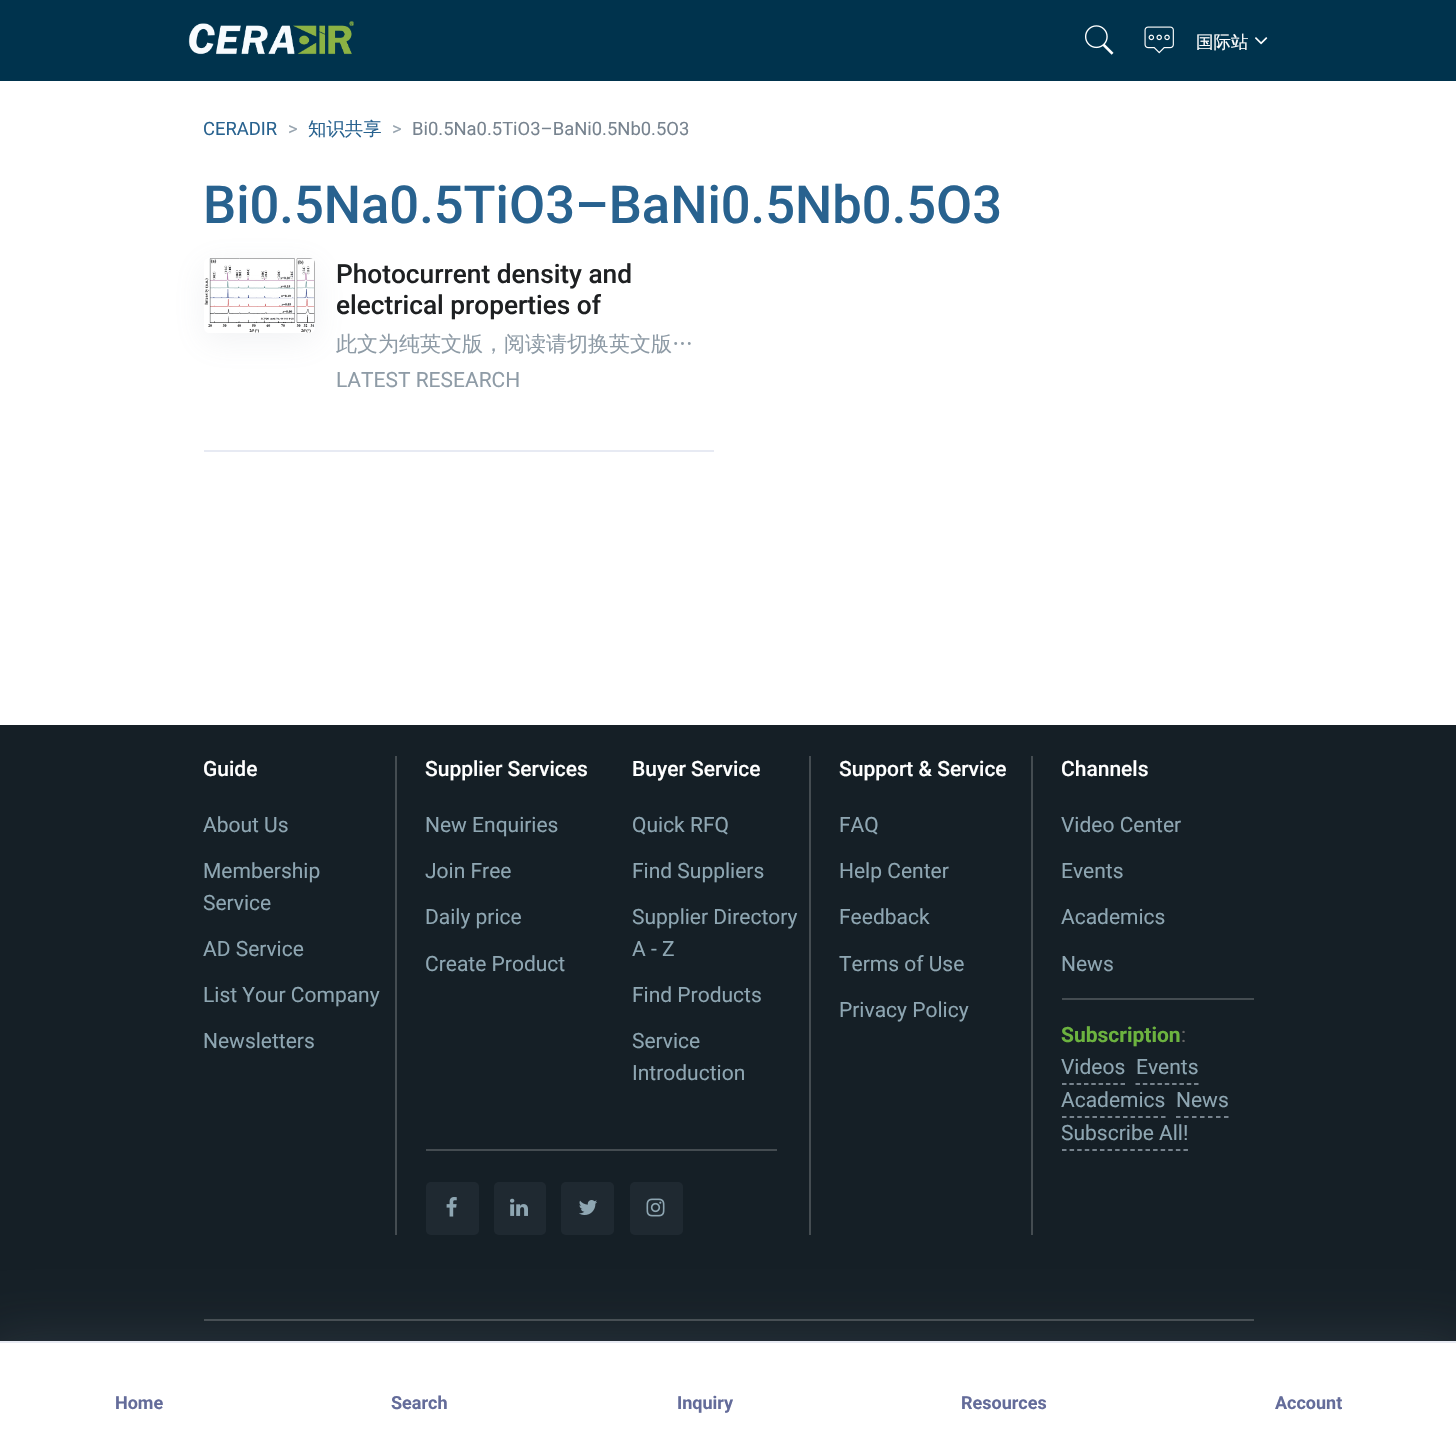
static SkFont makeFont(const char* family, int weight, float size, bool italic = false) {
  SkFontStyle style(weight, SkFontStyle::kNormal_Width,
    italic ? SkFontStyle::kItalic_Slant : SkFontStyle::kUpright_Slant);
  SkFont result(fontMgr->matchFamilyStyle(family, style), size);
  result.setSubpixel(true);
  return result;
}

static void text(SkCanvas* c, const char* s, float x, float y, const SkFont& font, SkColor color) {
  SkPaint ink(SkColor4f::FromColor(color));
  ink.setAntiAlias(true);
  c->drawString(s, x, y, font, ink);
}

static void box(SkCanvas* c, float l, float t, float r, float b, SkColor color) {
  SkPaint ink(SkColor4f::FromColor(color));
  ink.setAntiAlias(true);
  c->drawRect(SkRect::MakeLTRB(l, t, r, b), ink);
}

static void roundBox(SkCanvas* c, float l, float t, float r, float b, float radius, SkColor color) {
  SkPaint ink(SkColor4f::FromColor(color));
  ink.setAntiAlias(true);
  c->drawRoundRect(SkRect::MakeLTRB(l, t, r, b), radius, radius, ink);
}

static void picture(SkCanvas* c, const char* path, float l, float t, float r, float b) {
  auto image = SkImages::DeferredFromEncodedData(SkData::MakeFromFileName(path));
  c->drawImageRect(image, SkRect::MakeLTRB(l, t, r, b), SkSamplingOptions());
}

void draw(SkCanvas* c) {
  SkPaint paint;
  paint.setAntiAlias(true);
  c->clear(0xffffffff);
  box(c, 0, 0, 1456, 81, 0xff00334d);
  picture(c, "img_01.png", 188, 21, 354, 55);
  picture(c, "img_02.png", 1085, 25, 1114, 55);
  picture(c, "img_03.png", 1144, 26, 1174, 54);
  SkFont face1 = makeFont("WenQuanYi Zen Hei", 500, 17.5f);
  text(c, "国际站", 1196, 48, face1, 0xffffffff);
  picture(c, "img_04.png", 1255, 37, 1268, 45);
  SkFont face2 = makeFont("Roboto", 400, 18.4f);
  text(c, "CERADIR", 203, 135, face2, 0xff28628f);
  text(c, ">", 288, 135, face2, 0xff97a4af);
  SkFont face3 = makeFont("WenQuanYi Zen Hei", 500, 18.4f);
  text(c, "知识共享", 308, 135, face3, 0xff28628f);
  text(c, ">", 392, 135, face2, 0xff97a4af);
  text(c, "Bi0.5Na0.5TiO3–BaNi0.5Nb0.5O3", 412, 135, face2, 0xff77838f);
  SkFont face4 = makeFont("Roboto", 500, 52.5f);
  text(c, "Bi0.5Na0.5TiO3–BaNi0.5Nb0.5O3", 203, 223, face4, 0xff28628f);
  box(c, 204, 450, 714, 452, 0xffe7eaf3);
  paint.setColor(0x1f8c98a4);
  paint.setMaskFilter(SkMaskFilter::MakeBlur(kNormal_SkBlurStyle, 16));
  c->drawRoundRect(SkRect::MakeLTRB(204, 266, 315, 341), 6, 6, paint);
  paint.setMaskFilter(nullptr);
  picture(c, "img_05.png", 204, 258, 315, 333);
  SkFont face5 = makeFont("Roboto", 500, 26.25f);
  text(c, "Photocurrent density and", 336, 283, face5, 0xff1e2022);
  text(c, "electrical properties of", 336, 314, face5, 0xff1e2022);
  SkFont face6 = makeFont("WenQuanYi Zen Hei", 500, 21);
  text(c, "此文为纯英文版，阅读请切换英文版…", 336, 351, face6, 0xff8e9ba6);
  SkFont face7 = makeFont("Roboto", 400, 21);
  text(c, "LATEST RESEARCH", 336, 387, face7, 0xff8e9ba6);
  box(c, 0, 725, 1456, 1341, 0xff151f26);
  box(c, 395, 756, 397, 1235, 0xff444c51);
  SkFont face8 = makeFont("Roboto", 500, 21);
  text(c, "Guide", 203, 776, face8, 0xffffffff);
  text(c, "About Us", 203, 832, face7, 0xff8ea6b2);
  text(c, "Membership", 203, 878, face7, 0xff8ea6b2);
  text(c, "Service", 203, 910, face7, 0xff8ea6b2);
  text(c, "AD Service", 203, 956, face7, 0xff8ea6b2);
  text(c, "List Your Company", 203, 1002, face7, 0xff8ea6b2);
  text(c, "Newsletters", 203, 1048, face7, 0xff8ea6b2);
  box(c, 809, 756, 811, 1235, 0xff444c51);
  text(c, "Supplier Services", 425, 776, face8, 0xffffffff);
  text(c, "New Enquiries", 425, 832, face7, 0xff8ea6b2);
  text(c, "Join Free", 425, 878, face7, 0xff8ea6b2);
  text(c, "Daily price", 425, 924, face7, 0xff8ea6b2);
  text(c, "Create Product", 425, 971, face7, 0xff8ea6b2);
  text(c, "Buyer Service", 632, 776, face8, 0xffffffff);
  text(c, "Quick RFQ", 632, 832, face7, 0xff8ea6b2);
  text(c, "Find Suppliers", 632, 878, face7, 0xff8ea6b2);
  text(c, "Supplier Directory", 632, 924, face7, 0xff8ea6b2);
  text(c, "A - Z", 632, 956, face7, 0xff8ea6b2);
  text(c, "Find Products", 632, 1002, face7, 0xff8ea6b2);
  text(c, "Service", 632, 1048, face7, 0xff8ea6b2);
  text(c, "Introduction", 632, 1080, face7, 0xff8ea6b2);
  box(c, 426, 1149, 777, 1151, 0xff444c51);
  roundBox(c, 426, 1182, 479, 1235, 5, 0xff1f2931);
  picture(c, "img_06.png", 446, 1197, 457, 1217);
  roundBox(c, 494, 1182, 546, 1235, 5, 0xff1f2931);
  picture(c, "img_07.png", 510, 1198, 528, 1216);
  roundBox(c, 561, 1182, 614, 1235, 5, 0xff1f2931);
  picture(c, "img_08.png", 579, 1200, 597, 1215);
  roundBox(c, 630, 1182, 683, 1235, 5, 0xff1f2931);
  picture(c, "img_09.png", 646, 1198, 665, 1217);
  box(c, 1031, 756, 1033, 1235, 0xff444c51);
  text(c, "Support & Service", 839, 776, face8, 0xffffffff);
  text(c, "FAQ", 839, 832, face7, 0xff8ea6b2);
  text(c, "Help Center", 839, 878, face7, 0xff8ea6b2);
  text(c, "Feedback", 839, 924, face7, 0xff8ea6b2);
  text(c, "Terms of Use", 839, 971, face7, 0xff8ea6b2);
  text(c, "Privacy Policy", 839, 1017, face7, 0xff8ea6b2);
  text(c, "Channels", 1061, 776, face8, 0xffffffff);
  text(c, "Video Center", 1061, 832, face7, 0xff8ea6b2);
  text(c, "Events", 1061, 878, face7, 0xff8ea6b2);
  text(c, "Academics", 1061, 924, face7, 0xff8ea6b2);
  text(c, "News", 1061, 971, face7, 0xff8ea6b2);
  box(c, 1062, 998, 1254, 1000, 0xff444c51);
  SkFont face9 = makeFont("Roboto", 700, 21);
  text(c, "Subscription", 1061, 1042, face9, 0xff6cb33f);
  text(c, ":", 1181, 1042, face7, 0xff666666);
  paint.setStyle(SkPaint::kStroke_Style);
  paint.setStrokeWidth(1.5f);
  paint.setColor(0xff97a4af);
  paint.setPathEffect(SkDashPathEffect::Make({{4.5f, 2.82f}}, 0));
  c->drawPath(SkPathBuilder().moveTo(1062, 1084).lineTo(1125, 1084).detach(), paint);
  paint.setPathEffect(nullptr);
  text(c, "Videos", 1061, 1074, face7, 0xff8ea6b2);
  paint.setPathEffect(SkDashPathEffect::Make({{4.5f, 2.82f}}, 0));
  c->drawPath(SkPathBuilder().moveTo(1135.5f, 1084).lineTo(1198.5f, 1084).detach(), paint);
  paint.setPathEffect(nullptr);
  text(c, "Events", 1136, 1074, face7, 0xff8ea6b2);
  paint.setPathEffect(SkDashPathEffect::Make({{4.5f, 3.12f}}, 0));
  c->drawPath(SkPathBuilder().moveTo(1062, 1117).lineTo(1165.5f, 1117).detach(), paint);
  paint.setPathEffect(nullptr);
  text(c, "Academics", 1061, 1107, face7, 0xff8ea6b2);
  paint.setPathEffect(SkDashPathEffect::Make({{4.5f, 3.5f}}, 0));
  c->drawPath(SkPathBuilder().moveTo(1176, 1117).lineTo(1228.5f, 1117).detach(), paint);
  paint.setPathEffect(nullptr);
  text(c, "News", 1176, 1107, face7, 0xff8ea6b2);
  paint.setPathEffect(SkDashPathEffect::Make({{4.5f, 3.09f}}, 0));
  c->drawPath(SkPathBuilder().moveTo(1062, 1150).lineTo(1188, 1150).detach(), paint);
  paint.setPathEffect(nullptr);
  text(c, "Subscribe All!", 1061, 1140, face7, 0xff8ea6b2);
  box(c, 204, 1319, 1254, 1321, 0xff444c51);
  paint.setStyle(SkPaint::kFill_Style);
  paint.setColor(0x2e8c98a4);
  paint.setMaskFilter(SkMaskFilter::MakeBlur(kNormal_SkBlurStyle, 30));
  c->drawRect(SkRect::MakeLTRB(-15, 1341, 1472, 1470), paint);
  paint.setMaskFilter(nullptr);
  box(c, 0, 1343, 1456, 1439, 0xffffffff);
  box(c, 0, 1341, 1456, 1343, 0xffe7eaf3);
  SkFont face10 = makeFont("Roboto", 700, 18);
  text(c, "Home", 115, 1409, face10, 0xff646c9a);
  text(c, "Search", 391, 1409, face10, 0xff646c9a);
  text(c, "Inquiry", 677, 1409, face10, 0xff646c9a);
  text(c, "Resources", 961, 1409, face10, 0xff646c9a);
  text(c, "Account", 1275, 1409, face10, 0xff646c9a);
}
